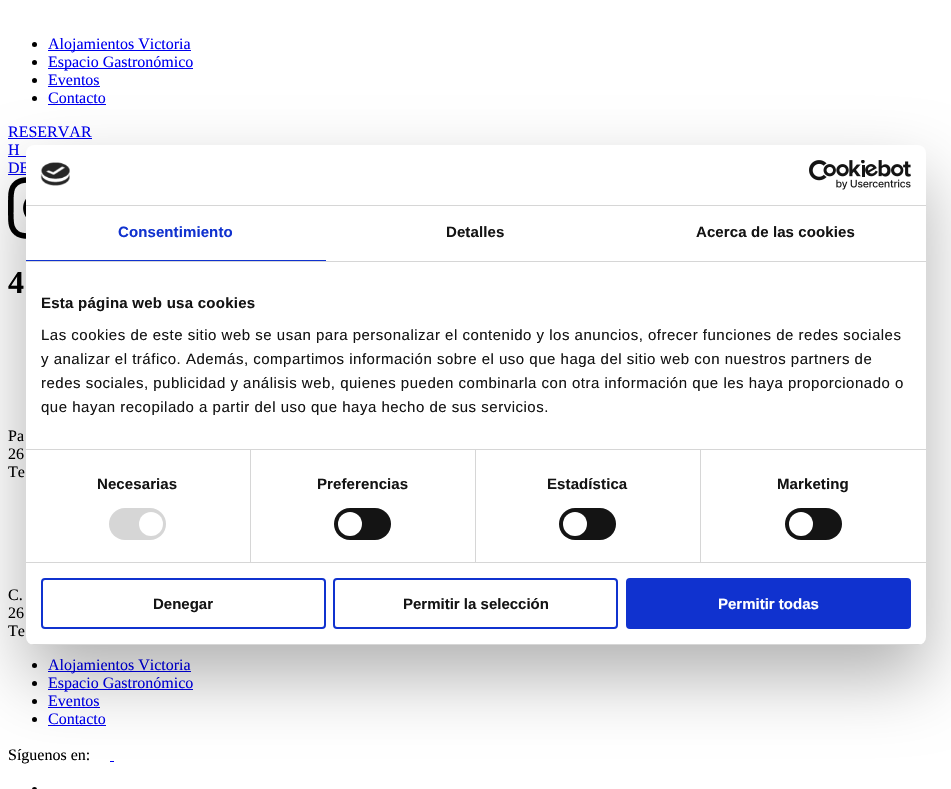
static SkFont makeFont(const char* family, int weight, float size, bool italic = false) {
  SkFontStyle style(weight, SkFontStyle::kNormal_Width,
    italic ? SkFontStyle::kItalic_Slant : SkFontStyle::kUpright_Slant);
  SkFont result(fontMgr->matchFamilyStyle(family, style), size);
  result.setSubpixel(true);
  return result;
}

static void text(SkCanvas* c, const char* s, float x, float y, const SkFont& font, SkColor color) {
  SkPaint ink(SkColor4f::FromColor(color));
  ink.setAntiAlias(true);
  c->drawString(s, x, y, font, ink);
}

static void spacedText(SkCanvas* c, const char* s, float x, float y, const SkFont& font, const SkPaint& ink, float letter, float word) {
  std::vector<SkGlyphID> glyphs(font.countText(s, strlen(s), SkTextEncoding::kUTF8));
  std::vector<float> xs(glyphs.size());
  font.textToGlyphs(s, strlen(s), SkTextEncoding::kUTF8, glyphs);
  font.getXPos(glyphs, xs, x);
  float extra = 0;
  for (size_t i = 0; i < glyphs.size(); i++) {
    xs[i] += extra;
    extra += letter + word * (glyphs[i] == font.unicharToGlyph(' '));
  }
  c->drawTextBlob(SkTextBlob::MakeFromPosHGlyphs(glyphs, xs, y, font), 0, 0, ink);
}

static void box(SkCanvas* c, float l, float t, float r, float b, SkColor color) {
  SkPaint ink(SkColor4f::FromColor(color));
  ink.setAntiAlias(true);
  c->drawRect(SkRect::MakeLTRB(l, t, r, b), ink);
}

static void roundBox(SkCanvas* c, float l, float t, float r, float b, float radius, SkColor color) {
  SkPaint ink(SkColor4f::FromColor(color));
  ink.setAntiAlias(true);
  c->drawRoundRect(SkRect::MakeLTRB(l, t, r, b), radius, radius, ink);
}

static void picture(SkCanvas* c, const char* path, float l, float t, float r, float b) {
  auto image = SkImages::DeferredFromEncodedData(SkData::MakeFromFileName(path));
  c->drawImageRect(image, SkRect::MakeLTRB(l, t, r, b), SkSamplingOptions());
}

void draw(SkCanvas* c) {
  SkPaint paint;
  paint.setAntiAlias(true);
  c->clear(0xffffffff);
  paint.setColor(0xff000000);
  c->drawCircle(34.5f, 44.5f, 2.5f, paint);
  box(c, 48, 50, 191, 51, 0xff0000ee);
  SkFont face1 = makeFont("Liberation Serif", 400, 16);
  text(c, "Alojamientos Victoria", 48, 49, face1, 0xff0000ee);
  c->drawCircle(34.5f, 62.5f, 2.5f, paint);
  box(c, 48, 68, 193, 69, 0xff0000ee);
  text(c, "Espacio Gastronómico", 48, 67, face1, 0xff0000ee);
  c->drawCircle(34.5f, 80.5f, 2.5f, paint);
  text(c, "Eventos", 48, 85, face1, 0xff0000ee);
  box(c, 48, 86, 100, 87, 0xff0000ee);
  c->drawCircle(34.5f, 98.5f, 2.5f, paint);
  text(c, "Contacto", 48, 103, face1, 0xff0000ee);
  box(c, 48, 104, 106, 105, 0xff0000ee);
  text(c, "RESERVAR", 8, 137, face1, 0xff0000ee);
  box(c, 8, 138, 92, 139, 0xff0000ee);
  text(c, "H", 8, 155, face1, 0xff0000ee);
  box(c, 8, 156, 26, 157, 0xff0000ee);
  text(c, "DE", 8, 173, face1, 0xff0000ee);
  box(c, 8, 174, 26, 175, 0xff0000ee);
  picture(c, "img_01.png", 8, 177, 26, 239);
  SkFont face2 = makeFont("Liberation Serif", 700, 32);
  text(c, "4", 8, 293, face2, 0xff000000);
  text(c, "Pa", 8, 441, face1, 0xff000000);
  text(c, "26", 8, 459, face1, 0xff000000);
  text(c, "Te", 8, 477, face1, 0xff000000);
  text(c, "C.", 8, 600, face1, 0xff000000);
  text(c, "26", 8, 618, face1, 0xff000000);
  text(c, "Te", 8, 636, face1, 0xff000000);
  c->drawCircle(34.5f, 665.5f, 2.5f, paint);
  box(c, 48, 671, 191, 672, 0xff0000ee);
  text(c, "Alojamientos Victoria", 48, 670, face1, 0xff0000ee);
  c->drawCircle(34.5f, 683.5f, 2.5f, paint);
  box(c, 48, 689, 193, 690, 0xff0000ee);
  text(c, "Espacio Gastronómico", 48, 688, face1, 0xff0000ee);
  c->drawCircle(34.5f, 701.5f, 2.5f, paint);
  text(c, "Eventos", 48, 706, face1, 0xff0000ee);
  box(c, 48, 707, 100, 708, 0xff0000ee);
  c->drawCircle(34.5f, 719.5f, 2.5f, paint);
  text(c, "Contacto", 48, 724, face1, 0xff0000ee);
  box(c, 48, 725, 106, 726, 0xff0000ee);
  text(c, "Síguenos en:", 8, 760, face1, 0xff000000);
  box(c, 110, 761, 114, 762, 0xff0000ee);
  c->drawCircle(34.5f, 789.5f, 2.5f, paint);
  paint.setColor(0x4d000000);
  paint.setMaskFilter(SkMaskFilter::MakeBlur(kNormal_SkBlurStyle, 34));
  c->drawRoundRect(SkRect::MakeLTRB(26, 177, 926, 677), 8, 8, paint);
  paint.setMaskFilter(nullptr);
  roundBox(c, 26, 145, 926, 645, 8, 0xffffffff);
  box(c, 26, 205, 926, 206, 0xffd6d6d6);
  picture(c, "img_02.png", 40, 162, 70, 186);
  picture(c, "img_03.png", 809, 160, 911, 190);
  box(c, 26, 261, 926, 262, 0xffd6d6d6);
  box(c, 26, 260, 326, 261, 0xff1032cf);
  SkFont face3 = makeFont("Liberation Sans", 700, 15);
  paint.setColor(0xff1032cf);
  spacedText(c, "Consentimiento", 118, 237, face3, paint, 0.1f, 0);
  paint.setColor(0xff141414);
  spacedText(c, "Detalles", 446, 237, face3, paint, 0.1f, 0);
  spacedText(c, "Acerca de las cookies", 696, 237, face3, paint, 0.1f, 0);
  box(c, 26, 449, 926, 450, 0xffd6d6d6);
  spacedText(c, "Esta página web usa cookies", 41, 308, face3, paint, 0.25f, 0);
  SkFont face4 = makeFont("Liberation Sans", 400, 15);
  spacedText(c, "Las cookies de este sitio web se usan para personalizar el contenido y los anuncios, ofrecer funciones de redes sociales", 41, 340, face4, paint, 0.5f, 0);
  spacedText(c, "y analizar el tráfico. Además, compartimos información sobre el uso que haga del sitio web con nuestros partners de", 41, 364, face4, paint, 0.5f, 0);
  spacedText(c, "redes sociales, publicidad y análisis web, quienes pueden combinarla con otra información que les haya proporcionado o", 41, 388, face4, paint, 0.5f, 0);
  spacedText(c, "que hayan recopilado a partir del uso que haya hecho de sus servicios.", 41, 412, face4, paint, 0.5f, 0);
  box(c, 26, 562, 926, 563, 0xffd6d6d6);
  box(c, 250, 450, 251, 562, 0xffd6d6d6);
  spacedText(c, "Necesarias", 97, 489, face3, paint, 0.1f, 0);
  roundBox(c, 109, 508, 166, 540, 16, 0xffd6d6d6);
  paint.setColor(0xffffffff);
  c->drawCircle(151, 524, 12, paint);
  box(c, 475, 450, 476, 562, 0xffd6d6d6);
  paint.setColor(0xff141414);
  spacedText(c, "Preferencias", 317, 489, face3, paint, 0.1f, 0);
  roundBox(c, 334, 508, 391, 540, 16, 0xff141414);
  paint.setColor(0xffffffff);
  c->drawCircle(350, 524, 12, paint);
  box(c, 700, 450, 701, 562, 0xffd6d6d6);
  paint.setColor(0xff141414);
  spacedText(c, "Estadística", 547, 489, face3, paint, 0.1f, 0);
  roundBox(c, 559, 508, 616, 540, 16, 0xff141414);
  paint.setColor(0xffffffff);
  c->drawCircle(575, 524, 12, paint);
  paint.setColor(0xff141414);
  spacedText(c, "Marketing", 777, 489, face3, paint, 0.1f, 0);
  roundBox(c, 785, 508, 842, 540, 16, 0xff141414);
  paint.setColor(0xffffffff);
  c->drawCircle(801, 524, 12, paint);
  c->save();
  c->clipPath(SkPathBuilder().moveTo(34, 145).lineTo(918, 145).cubicTo(922.5f, 145, 926, 148.5f, 926, 153).lineTo(926, 637).cubicTo(926, 641.5f, 922.5f, 645, 918, 645).lineTo(34, 645).cubicTo(29.5f, 645, 26, 641.5f, 26, 637).lineTo(26, 153).cubicTo(26, 148.5f, 29.5f, 145, 34, 145).close().detach(), true);
  box(c, 26, 644, 926, 645, 0xffd6d6d6);
  c->restore();
  paint.setStyle(SkPaint::kStroke_Style);
  paint.setStrokeWidth(2);
  paint.setColor(0xff1032cf);
  c->drawRoundRect(SkRect::MakeLTRB(42, 579, 325, 628), 3, 3, paint);
  text(c, "Denegar", 153, 609, face3, 0xff141414);
  c->drawRoundRect(SkRect::MakeLTRB(334, 579, 617, 628), 3, 3, paint);
  text(c, "Permitir la selección", 403, 609, face3, 0xff141414);
  paint.setStyle(SkPaint::kFill_Style);
  c->drawRoundRect(SkRect::MakeLTRB(627, 579, 910, 628), 3, 3, paint);
  paint.setStyle(SkPaint::kStroke_Style);
  c->drawRoundRect(SkRect::MakeLTRB(627, 579, 910, 628), 3, 3, paint);
  text(c, "Permitir todas", 718, 609, face3, 0xffffffff);
}
